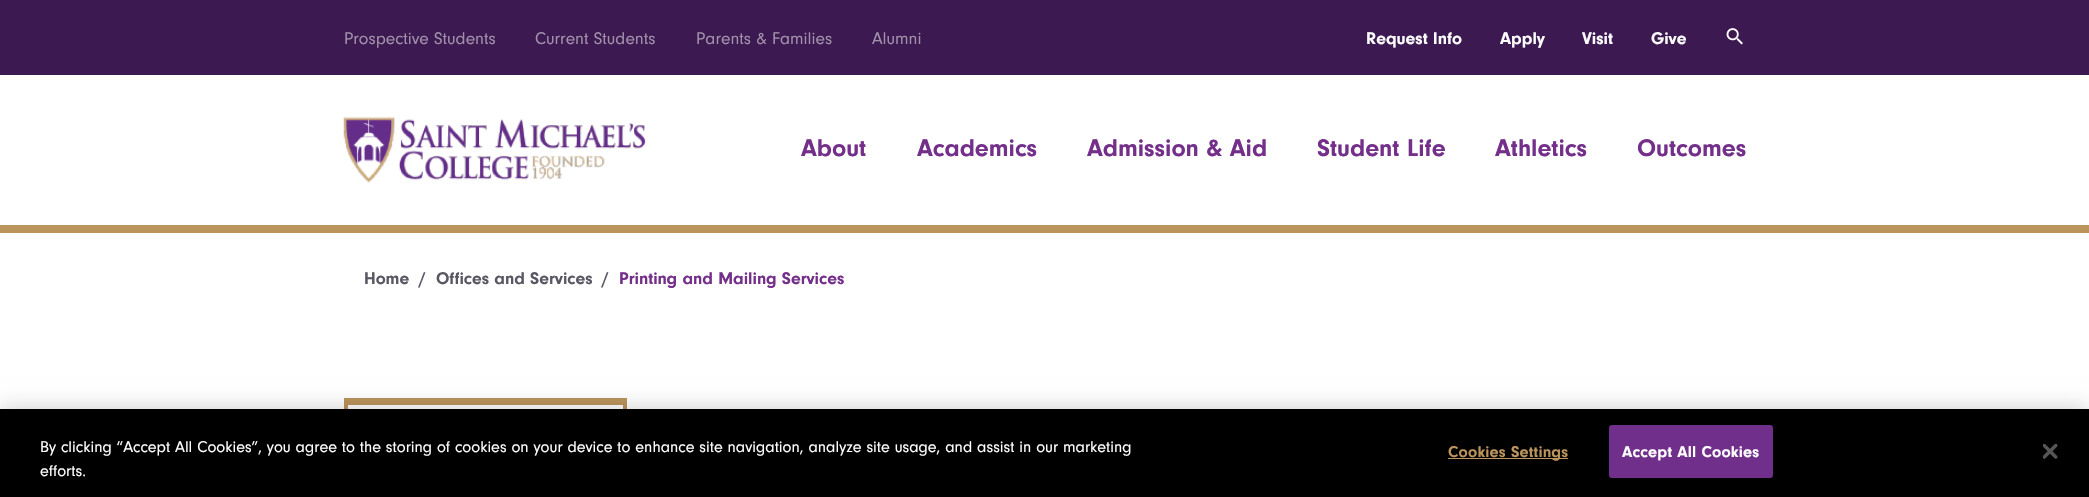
static SkFont makeFont(const char* family, int weight, float size, bool italic = false) {
  SkFontStyle style(weight, SkFontStyle::kNormal_Width,
    italic ? SkFontStyle::kItalic_Slant : SkFontStyle::kUpright_Slant);
  SkFont result(fontMgr->matchFamilyStyle(family, style), size);
  result.setSubpixel(true);
  return result;
}

static void text(SkCanvas* c, const char* s, float x, float y, const SkFont& font, SkColor color) {
  SkPaint ink(SkColor4f::FromColor(color));
  ink.setAntiAlias(true);
  c->drawString(s, x, y, font, ink);
}

static void spacedText(SkCanvas* c, const char* s, float x, float y, const SkFont& font, const SkPaint& ink, float letter, float word) {
  std::vector<SkGlyphID> glyphs(font.countText(s, strlen(s), SkTextEncoding::kUTF8));
  std::vector<float> xs(glyphs.size());
  font.textToGlyphs(s, strlen(s), SkTextEncoding::kUTF8, glyphs);
  font.getXPos(glyphs, xs, x);
  float extra = 0;
  for (size_t i = 0; i < glyphs.size(); i++) {
    xs[i] += extra;
    extra += letter + word * (glyphs[i] == font.unicharToGlyph(' '));
  }
  c->drawTextBlob(SkTextBlob::MakeFromPosHGlyphs(glyphs, xs, y, font), 0, 0, ink);
}

static void box(SkCanvas* c, float l, float t, float r, float b, SkColor color) {
  SkPaint ink(SkColor4f::FromColor(color));
  ink.setAntiAlias(true);
  c->drawRect(SkRect::MakeLTRB(l, t, r, b), ink);
}

static void picture(SkCanvas* c, const char* path, float l, float t, float r, float b) {
  auto image = SkImages::DeferredFromEncodedData(SkData::MakeFromFileName(path));
  c->drawImageRect(image, SkRect::MakeLTRB(l, t, r, b), SkSamplingOptions());
}

void draw(SkCanvas* c) {
  SkPaint paint;
  paint.setAntiAlias(true);
  c->clear(0xffffffff);
  box(c, 0, 225, 2089, 233, 0xffbb945c);
  box(c, 0, 0, 2089, 75, 0xff3c1951);
  SkFont face1 = makeFont("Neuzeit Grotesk", 400, 17.5f);
  text(c, "Prospective Students", 344, 44, face1, 0xffa090a9);
  text(c, "Current Students", 535, 44, face1, 0xffa090a9);
  text(c, "Parents & Families", 696, 44, face1, 0xffa090a9);
  text(c, "Alumni", 872, 44, face1, 0xffa090a9);
  SkFont face2 = makeFont("Neuzeit Grotesk", 700, 17.5f);
  text(c, "Request Info", 1366, 44, face2, 0xffffffff);
  text(c, "Apply", 1500, 44, face2, 0xffffffff);
  text(c, "Visit", 1582, 44, face2, 0xffffffff);
  text(c, "Give", 1651, 44, face2, 0xffffffff);
  picture(c, "img_01.png", 1726, 28, 1743, 45);
  picture(c, "img_02.png", 343, 117, 646, 183);
  SkFont face3 = makeFont("Neuzeit Grotesk", 700, 25);
  text(c, "About", 801, 156, face3, 0xff742f8a);
  text(c, "Academics", 917, 156, face3, 0xff742f8a);
  text(c, "Admission & Aid", 1087, 156, face3, 0xff742f8a);
  text(c, "Student Life", 1317, 156, face3, 0xff742f8a);
  text(c, "Athletics", 1495, 156, face3, 0xff742f8a);
  text(c, "Outcomes", 1637, 156, face3, 0xff742f8a);
  text(c, "Home", 364, 284, face2, 0xff5a5764);
  text(c, "/", 419, 284, face2, 0xff5a5764);
  text(c, "Offices and Services", 436, 284, face2, 0xff5a5764);
  text(c, "/", 602, 284, face2, 0xff5a5764);
  text(c, "Printing and Mailing Services", 619, 284, face2, 0xff742f8a);
  box(c, 344, 398, 626, 405, 0xffbb945c);
  box(c, 623, 398, 627, 409, 0xffbb945c);
  box(c, 344, 398, 348, 409, 0xffbb945c);
  paint.setColor(0x33000000);
  paint.setMaskFilter(SkMaskFilter::MakeBlur(kNormal_SkBlurStyle, 11));
  c->drawRect(SkRect::MakeLTRB(0, 409, 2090, 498), paint);
  paint.setMaskFilter(nullptr);
  box(c, 0, 409, 2089, 497, 0xff000000);
  SkFont face4 = makeFont("Neuzeit Grotesk", 400, 16.25f);
  text(c, "By clicking “Accept All Cookies”, you agree to the storing of cookies on your device to enhance site navigation, analyze site usage, and assist in our marketing", 40, 452, face4, 0xffffffff);
  text(c, "efforts.", 40, 476, face4, 0xffffffff);
  box(c, 1448, 458, 1568, 459, 0xffbb945c);
  SkFont face5 = makeFont("Neuzeit Grotesk", 700, 16.25f);
  paint.setColor(0xffbb945c);
  spacedText(c, "Cookies Settings", 1448, 457, face5, paint, 0.2f, 0);
  paint.setColor(0xff702f8a);
  c->drawRoundRect(SkRect::MakeLTRB(1609.5f, 425.5f, 1772.5f, 477.5f), 2, 2, paint);
  paint.setStyle(SkPaint::kStroke_Style);
  paint.setStrokeWidth(1);
  c->drawRoundRect(SkRect::MakeLTRB(1609.5f, 425.5f, 1772.5f, 477.5f), 2, 2, paint);
  paint.setStyle(SkPaint::kFill_Style);
  paint.setColor(0xffffffff);
  spacedText(c, "Accept All Cookies", 1622, 457, face5, paint, 0.2f, 0);
  picture(c, "img_03.png", 2043, 444, 2058, 459);
}
